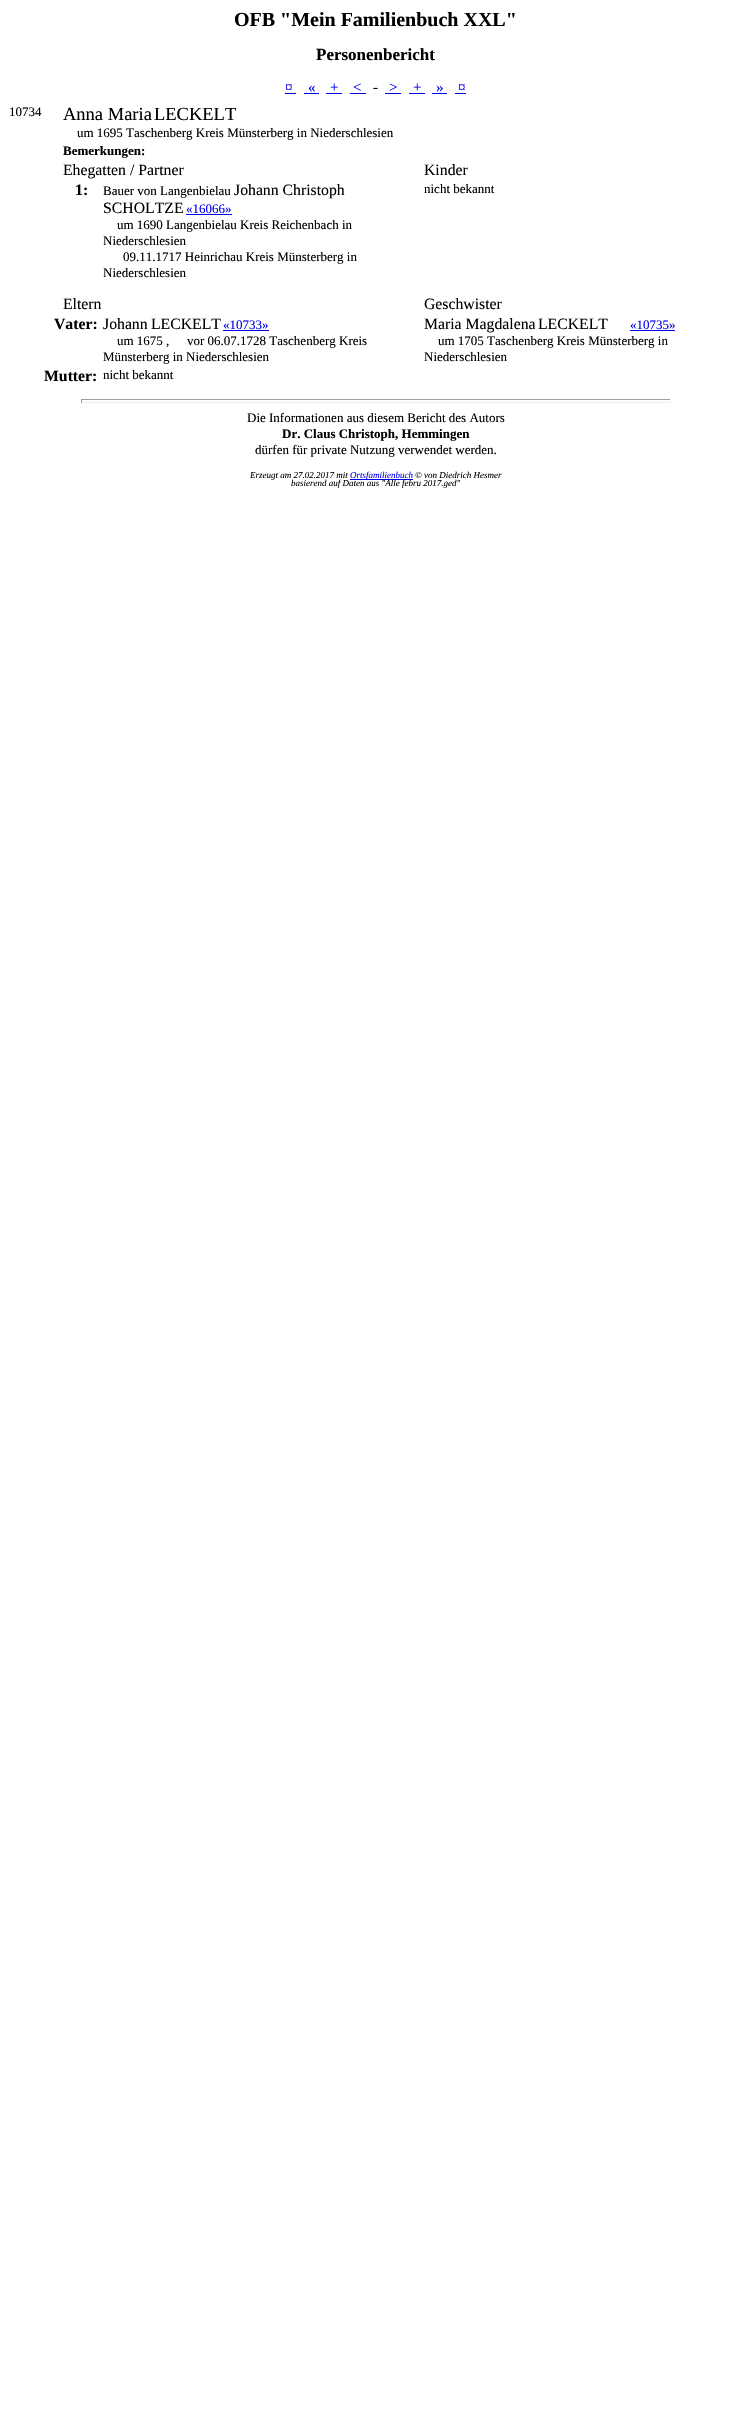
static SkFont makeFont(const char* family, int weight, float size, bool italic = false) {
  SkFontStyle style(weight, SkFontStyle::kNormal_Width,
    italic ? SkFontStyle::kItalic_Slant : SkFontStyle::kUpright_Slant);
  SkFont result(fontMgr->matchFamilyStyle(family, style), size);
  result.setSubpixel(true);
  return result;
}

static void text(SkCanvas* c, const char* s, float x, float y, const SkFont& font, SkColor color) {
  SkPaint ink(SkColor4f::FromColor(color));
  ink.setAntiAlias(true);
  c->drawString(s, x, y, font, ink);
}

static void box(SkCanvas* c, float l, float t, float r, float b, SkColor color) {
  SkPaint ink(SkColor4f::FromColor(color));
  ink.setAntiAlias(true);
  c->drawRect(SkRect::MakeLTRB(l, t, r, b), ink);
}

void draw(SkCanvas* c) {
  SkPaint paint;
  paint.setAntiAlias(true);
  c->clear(0xffffffff);
  SkFont face1 = makeFont("Liberation Serif", 700, 20);
  text(c, "OFB \"Mein Familienbuch XXL\"", 234, 26, face1, 0xff000000);
  SkFont face2 = makeFont("Liberation Serif", 700, 17);
  text(c, "Personenbericht", 316, 60, face2, 0xff000000);
  SkFont face3 = makeFont("Liberation Serif", 400, 15);
  text(c, "¤", 285, 92, face3, 0xff0000ee);
  box(c, 285, 93, 296, 94, 0xff0000ee);
  text(c, "«", 308, 92, face3, 0xff0000ee);
  box(c, 304, 93, 319, 94, 0xff0000ee);
  text(c, "+", 330, 92, face3, 0xff0000ee);
  box(c, 326, 93, 342, 94, 0xff0000ee);
  text(c, "<", 353, 92, face3, 0xff0000ee);
  box(c, 350, 93, 366, 94, 0xff0000ee);
  text(c, "-", 373, 92, face3, 0xff000000);
  text(c, ">", 389, 92, face3, 0xff0000ee);
  box(c, 385, 93, 401, 94, 0xff0000ee);
  text(c, "+", 413, 92, face3, 0xff0000ee);
  box(c, 409, 93, 425, 94, 0xff0000ee);
  text(c, "»", 436, 92, face3, 0xff0000ee);
  box(c, 432, 93, 447, 94, 0xff0000ee);
  text(c, "¤", 458, 92, face3, 0xff0000ee);
  box(c, 455, 93, 466, 94, 0xff0000ee);
  SkFont face4 = makeFont("Liberation Serif", 400, 13);
  text(c, "10734", 9, 116, face4, 0xff000000);
  SkFont face5 = makeFont("Liberation Serif", 400, 18.5f);
  text(c, "Anna Maria", 63, 120, face5, 0xff000000);
  text(c, "LECKELT", 154, 120, face5, 0xff000000);
  text(c, "um 1695 Taschenberg Kreis Münsterberg in Niederschlesien", 77, 137, face4, 0xff000000);
  SkFont face6 = makeFont("Liberation Serif", 700, 13);
  text(c, "Bemerkungen:", 63, 155, face6, 0xff000000);
  SkFont face7 = makeFont("Liberation Serif", 400, 15.75f);
  text(c, "Ehegatten / Partner", 63, 175, face7, 0xff000000);
  text(c, "Kinder", 424, 175, face7, 0xff000000);
  SkFont face8 = makeFont("Liberation Serif", 700, 15.75f);
  text(c, "1:", 75, 195, face8, 0xff000000);
  text(c, "Bauer von Langenbielau", 103, 195, face4, 0xff000000);
  text(c, "Johann Christoph", 234, 195, face7, 0xff000000);
  text(c, "SCHOLTZE", 103, 213, face7, 0xff000000);
  text(c, "«16066»", 186, 213, face4, 0xff0000ee);
  box(c, 186, 214, 232, 215, 0xff0000ee);
  text(c, "um 1690 Langenbielau Kreis Reichenbach in", 117, 229, face4, 0xff000000);
  text(c, "Niederschlesien", 103, 245, face4, 0xff000000);
  text(c, "09.11.1717 Heinrichau Kreis Münsterberg in", 123, 261, face4, 0xff000000);
  text(c, "Niederschlesien", 103, 277, face4, 0xff000000);
  text(c, "nicht bekannt", 424, 193, face4, 0xff000000);
  text(c, "Eltern", 63, 309, face7, 0xff000000);
  text(c, "Geschwister", 424, 309, face7, 0xff000000);
  text(c, "Vater:", 54, 329, face8, 0xff000000);
  text(c, "Johann", 103, 329, face7, 0xff000000);
  text(c, "LECKELT", 151, 329, face7, 0xff000000);
  text(c, "«10733»", 223, 329, face4, 0xff0000ee);
  box(c, 223, 330, 269, 331, 0xff0000ee);
  text(c, "um 1675 ,", 117, 345, face4, 0xff000000);
  text(c, "vor 06.07.1728 Taschenberg Kreis", 187, 345, face4, 0xff000000);
  text(c, "Münsterberg in Niederschlesien", 103, 361, face4, 0xff000000);
  text(c, "Maria Magdalena", 424, 329, face7, 0xff000000);
  text(c, "LECKELT", 538, 329, face7, 0xff000000);
  text(c, "«10735»", 630, 329, face4, 0xff0000ee);
  box(c, 630, 330, 675, 331, 0xff0000ee);
  text(c, "um 1705 Taschenberg Kreis Münsterberg in", 438, 345, face4, 0xff000000);
  text(c, "Niederschlesien", 424, 361, face4, 0xff000000);
  text(c, "Mutter:", 44, 381, face8, 0xff000000);
  text(c, "nicht bekannt", 103, 379, face4, 0xff000000);
  box(c, 81, 399, 671, 400, 0xff9f9f9f);
  box(c, 670, 399, 671, 403, 0xffeeeeee);
  box(c, 81, 402, 671, 403, 0xffeeeeee);
  box(c, 81, 399, 82, 403, 0xff9f9f9f);
  text(c, "Die Informationen aus diesem Bericht des Autors", 247, 422, face4, 0xff000000);
  text(c, "Dr. Claus Christoph, Hemmingen", 282, 438, face6, 0xff000000);
  text(c, "dürfen für private Nutzung verwendet werden.", 255, 454, face4, 0xff000000);
  SkFont face9 = makeFont("Liberation Serif", 400, 9, true);
  text(c, "Erzeugt am 27.02.2017 mit", 250, 478, face9, 0xff000000);
  box(c, 350, 479, 413, 480, 0xff0000ee);
  text(c, "Ortsfamilienbuch", 350, 478, face9, 0xff0000ee);
  text(c, "© von Diedrich Hesmer", 415, 478, face9, 0xff000000);
  text(c, "basierend auf Daten aus \"Alle febru 2017.ged\"", 291, 486, face9, 0xff000000);
}
